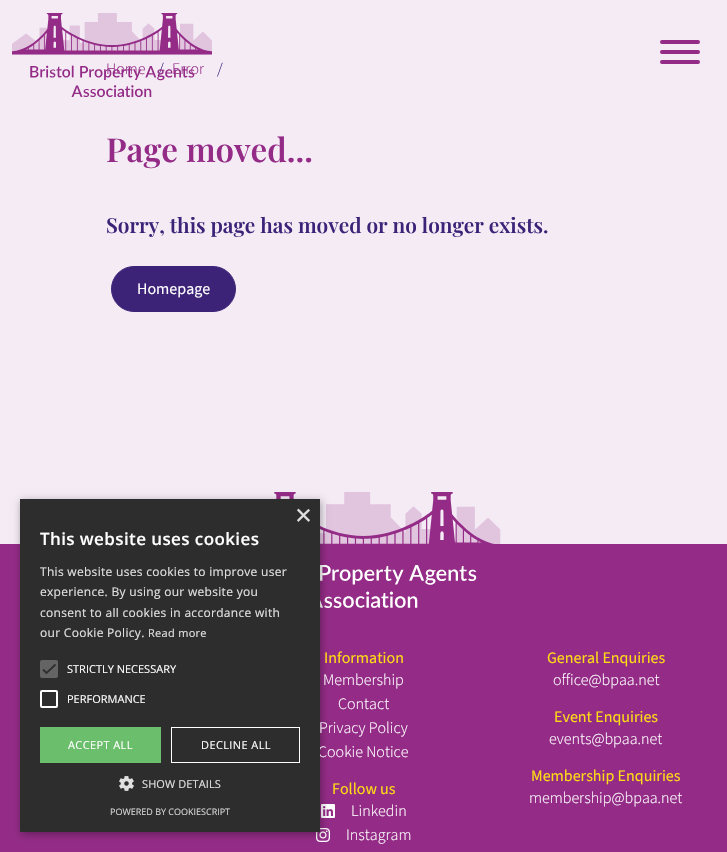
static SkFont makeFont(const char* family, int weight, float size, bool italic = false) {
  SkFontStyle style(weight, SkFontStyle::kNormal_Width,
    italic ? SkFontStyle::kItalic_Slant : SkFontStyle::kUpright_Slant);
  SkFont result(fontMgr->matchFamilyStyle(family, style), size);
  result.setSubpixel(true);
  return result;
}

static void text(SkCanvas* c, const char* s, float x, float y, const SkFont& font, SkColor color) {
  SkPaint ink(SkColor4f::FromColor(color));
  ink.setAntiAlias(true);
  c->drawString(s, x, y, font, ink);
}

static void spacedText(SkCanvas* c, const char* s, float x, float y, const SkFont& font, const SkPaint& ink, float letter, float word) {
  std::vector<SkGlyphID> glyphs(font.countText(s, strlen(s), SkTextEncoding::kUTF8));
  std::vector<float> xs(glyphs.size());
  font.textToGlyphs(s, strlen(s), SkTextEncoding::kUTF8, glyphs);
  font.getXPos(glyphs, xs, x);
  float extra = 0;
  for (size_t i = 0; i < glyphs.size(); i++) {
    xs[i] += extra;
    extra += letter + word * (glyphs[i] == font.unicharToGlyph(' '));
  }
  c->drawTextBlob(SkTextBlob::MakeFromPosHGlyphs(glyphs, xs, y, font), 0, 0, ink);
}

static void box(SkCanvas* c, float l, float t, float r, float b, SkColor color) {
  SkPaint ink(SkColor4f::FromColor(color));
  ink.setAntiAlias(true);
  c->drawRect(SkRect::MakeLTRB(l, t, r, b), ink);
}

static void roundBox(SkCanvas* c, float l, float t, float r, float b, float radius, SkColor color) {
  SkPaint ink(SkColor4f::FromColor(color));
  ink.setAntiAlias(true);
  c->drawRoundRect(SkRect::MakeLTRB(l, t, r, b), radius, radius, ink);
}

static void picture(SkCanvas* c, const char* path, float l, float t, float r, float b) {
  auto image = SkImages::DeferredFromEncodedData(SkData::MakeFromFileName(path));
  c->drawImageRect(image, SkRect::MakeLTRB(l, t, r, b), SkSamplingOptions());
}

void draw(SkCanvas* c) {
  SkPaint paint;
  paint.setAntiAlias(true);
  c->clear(0xfff4ebf5);
  SkFont face1 = makeFont("Source Sans 3", 300, 16);
  text(c, "Home", 106, 74, face1, 0xff942c87);
  text(c, "/", 158, 74, face1, 0xff3c2378);
  text(c, "Error", 172, 74, face1, 0xff942c87);
  picture(c, "img_01.png", 12, 13, 212, 97);
  roundBox(c, 660, 40, 700, 44, 2, 0xff942c87);
  roundBox(c, 660, 50, 700, 54, 2, 0xff942c87);
  roundBox(c, 660, 60, 700, 64, 2, 0xff942c87);
  text(c, "/", 217, 74, face1, 0xff3c2378);
  SkFont face2 = makeFont("Playfair Display", 600, 33);
  text(c, "Page moved...", 106, 162, face2, 0xff942c87);
  SkFont face3 = makeFont("Playfair Display", 600, 20.8f);
  text(c, "Sorry, this page has moved or no longer exists.", 106, 233, face3, 0xff3c2378);
  paint.setColor(0xff3c2378);
  c->drawRoundRect(SkRect::MakeLTRB(111.5f, 266.5f, 235.5f, 311.5f), 22.5f, 22.5f, paint);
  paint.setStyle(SkPaint::kStroke_Style);
  paint.setStrokeWidth(1);
  c->drawRoundRect(SkRect::MakeLTRB(111.5f, 266.5f, 235.5f, 311.5f), 22.5f, 22.5f, paint);
  SkFont face4 = makeFont("Source Sans 3", 400, 16);
  text(c, "Homepage", 137, 294, face4, 0xffffffff);
  box(c, 0, 544, 727, 852, 0xff942c87);
  picture(c, "img_03.png", 274, 492, 501, 608);
  picture(c, "img_04.png", 321, 804, 335, 818);
  picture(c, "img_05.png", 316, 828, 330, 842);
  paint.setStyle(SkPaint::kFill_Style);
  paint.setColor(0x59000000);
  paint.setMaskFilter(SkMaskFilter::MakeBlur(kNormal_SkBlurStyle, 4));
  c->drawRect(SkRect::MakeLTRB(21, 501, 321, 834), paint);
  paint.setMaskFilter(nullptr);
  text(c, "Cookie Notice", 318, 757, face1, 0xffffffff);
  box(c, 20, 499, 320, 832, 0xff2d2d2d);
  SkFont face5 = makeFont("Liberation Sans", 400, 29);
  text(c, "×", 295, 525, face5, 0xffe0e0e0);
  SkFont face6 = makeFont("Open Sans", 600, 17);
  paint.setColor(0xffffffff);
  spacedText(c, "This website uses cookies", 40, 545, face6, paint, 0.4f, 0);
  SkFont face7 = makeFont("Open Sans", 400, 12);
  paint.setColor(0xffe0e0e0);
  spacedText(c, "This website uses cookies to improve user", 40, 576, face7, paint, 0.3f, 0);
  spacedText(c, "experience. By using our website you", 40, 596, face7, paint, 0.3f, 0);
  spacedText(c, "consent to all cookies in accordance with", 40, 617, face7, paint, 0.3f, 0);
  spacedText(c, "our Cookie Policy.", 40, 637, face7, paint, 0.3f, 0);
  SkFont face8 = makeFont("Open Sans", 400, 11);
  spacedText(c, "Read more", 148, 637, face8, paint, 0.3f, 0);
  roundBox(c, 40, 660, 58, 678, 2, 0xff646464);
  paint.setStyle(SkPaint::kStroke_Style);
  paint.setStrokeWidth(1.8f);
  paint.setColor(0xff2d2d2d);
  c->drawPath(SkPathBuilder().moveTo(43, 669.5f).lineTo(46.5f, 673).lineTo(55.5f, 664.5f).detach(), paint);
  text(c, "STRICTLY NECESSARY", 67, 673, face8, 0xffffffff);
  paint.setStrokeWidth(2);
  paint.setColor(0xffffffff);
  c->drawRoundRect(SkRect::MakeLTRB(41, 691, 57, 707), 1, 1, paint);
  text(c, "PERFORMANCE", 67, 703, face8, 0xffffffff);
  box(c, 40, 727, 161, 763, 0xff6bbe6b);
  paint.setStyle(SkPaint::kFill_Style);
  spacedText(c, "ACCEPT ALL", 68, 749, face8, paint, 0.4f, 0);
  paint.setStyle(SkPaint::kStroke_Style);
  paint.setStrokeWidth(1);
  c->drawRect(SkRect::MakeLTRB(171.5f, 727.5f, 299.5f, 762.5f), paint);
  paint.setStyle(SkPaint::kFill_Style);
  spacedText(c, "DECLINE ALL", 201, 749, face8, paint, 0.4f, 0);
  picture(c, "img_02.png", 119, 776, 134, 791);
  paint.setColor(0xffe0e0e0);
  spacedText(c, "SHOW DETAILS", 142, 788, face8, paint, 0.1f, 0);
  SkFont face9 = makeFont("Open Sans", 400, 9);
  text(c, "POWERED BY COOKIESCRIPT", 110, 815, face9, 0xffd5d5d5);
  text(c, "Information", 324, 663, face4, 0xffffdc14);
  text(c, "Membership", 323, 685, face1, 0xffffffff);
  text(c, "Contact", 338, 709, face1, 0xffffffff);
  text(c, "Privacy Policy", 319, 733, face1, 0xffffffff);
  text(c, "Follow us", 332, 794, face4, 0xffffdc14);
  text(c, "Linkedin", 351, 816, face1, 0xffffffff);
  text(c, "Instagram", 346, 840, face1, 0xffffffff);
  text(c, "General Enquiries", 547, 663, face4, 0xffffdc14);
  text(c, "office@bpaa.net", 553, 685, face1, 0xffffffff);
  text(c, "Event Enquiries", 554, 722, face4, 0xffffdc14);
  text(c, "events@bpaa.net", 549, 744, face1, 0xffffffff);
  text(c, "Membership Enquiries", 531, 781, face4, 0xffffdc14);
  text(c, "membership@bpaa.net", 529, 803, face1, 0xffffffff);
}
